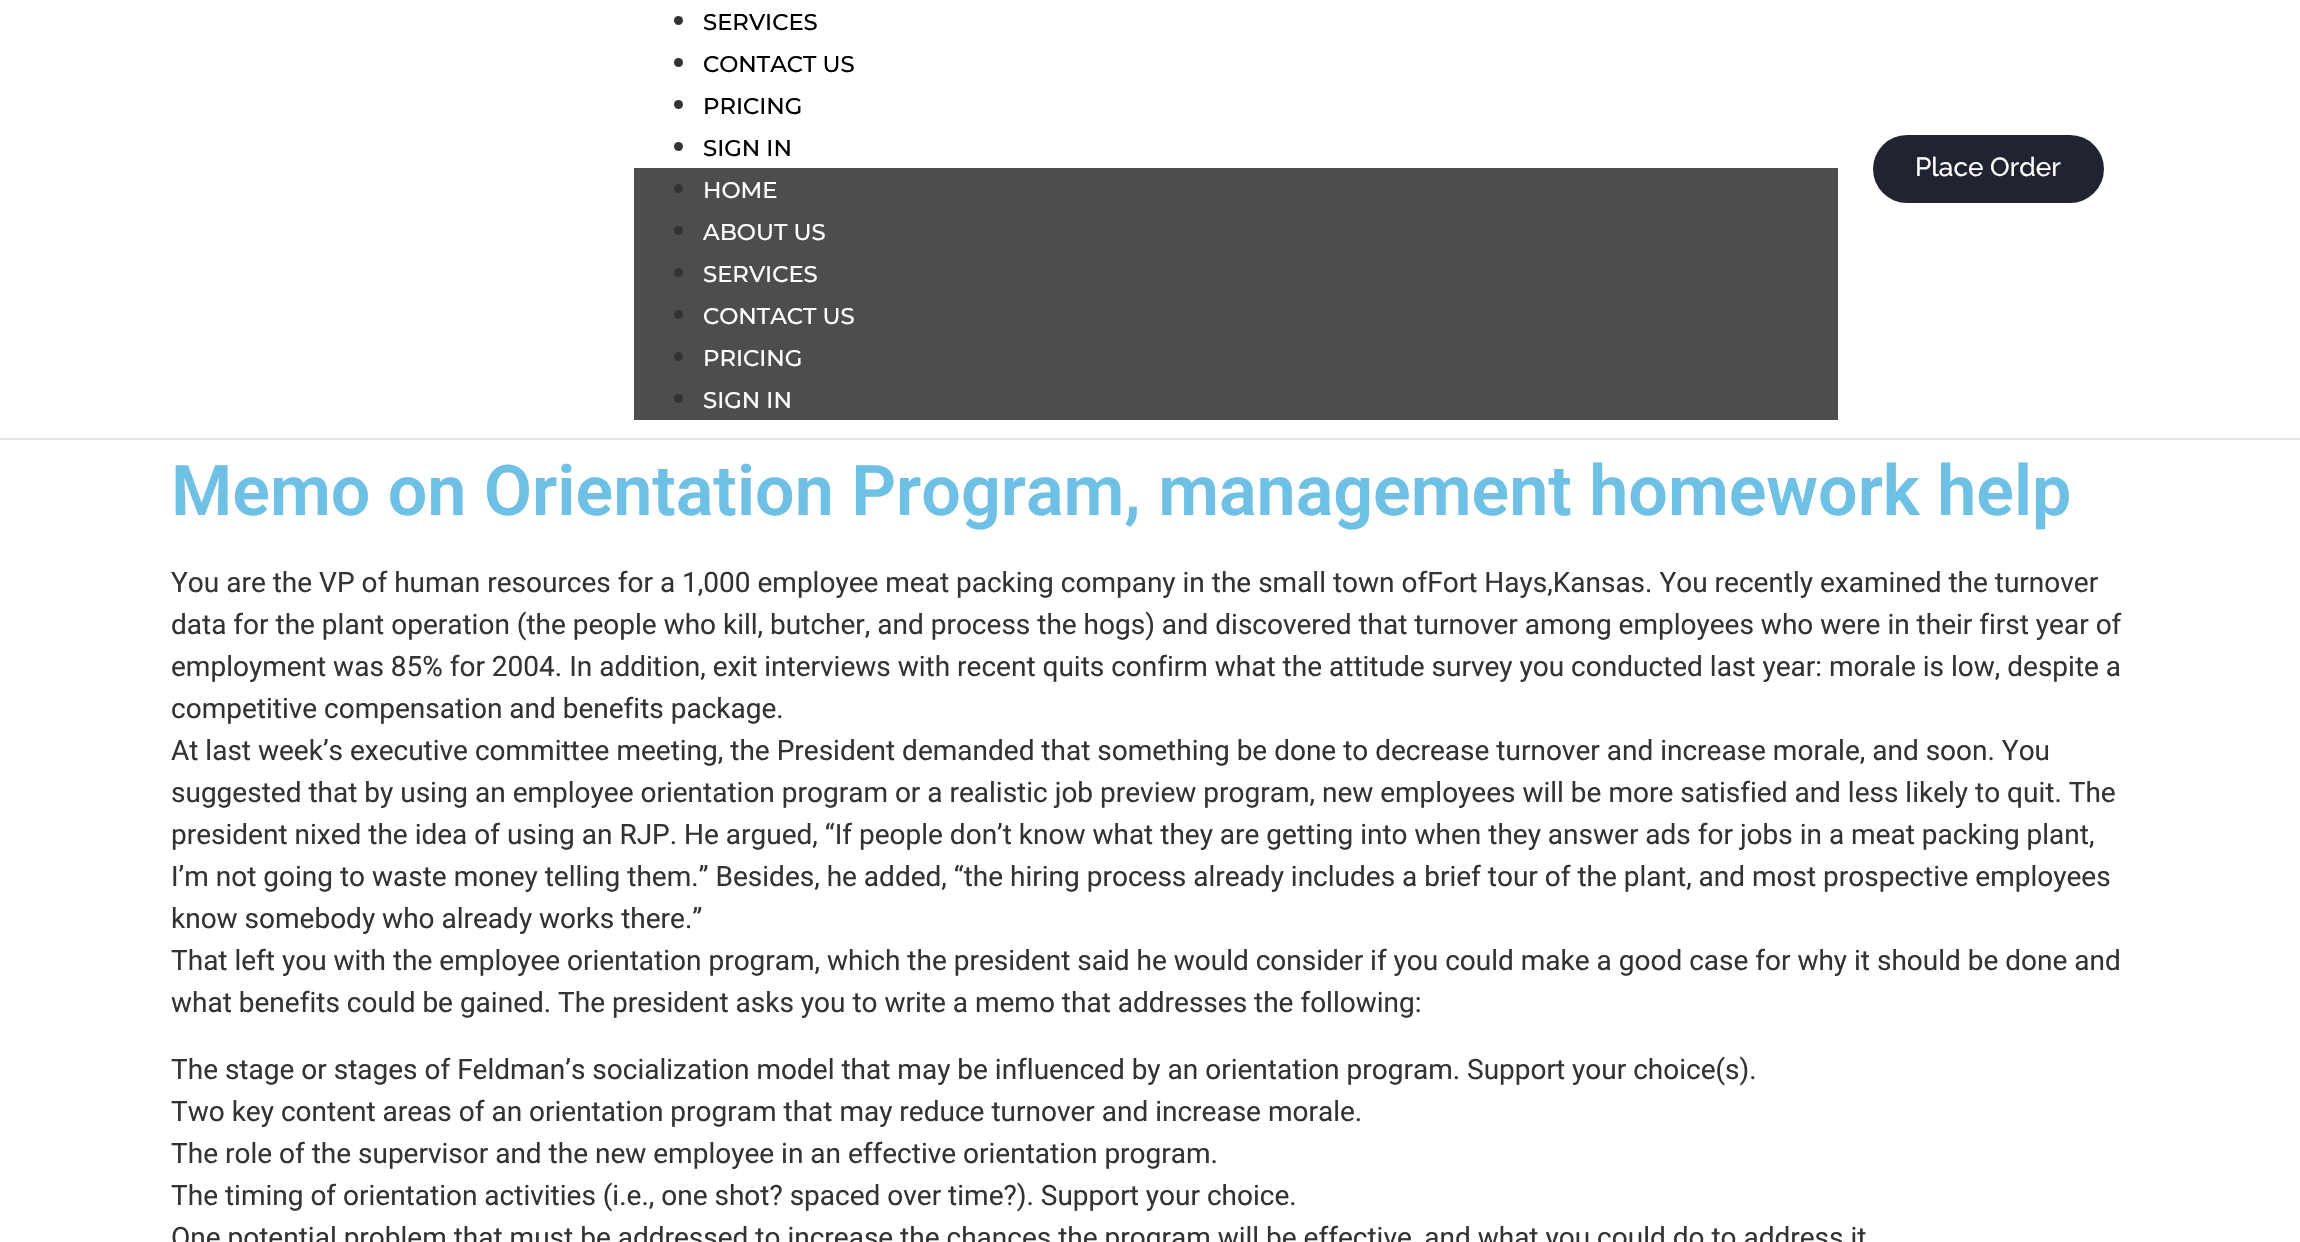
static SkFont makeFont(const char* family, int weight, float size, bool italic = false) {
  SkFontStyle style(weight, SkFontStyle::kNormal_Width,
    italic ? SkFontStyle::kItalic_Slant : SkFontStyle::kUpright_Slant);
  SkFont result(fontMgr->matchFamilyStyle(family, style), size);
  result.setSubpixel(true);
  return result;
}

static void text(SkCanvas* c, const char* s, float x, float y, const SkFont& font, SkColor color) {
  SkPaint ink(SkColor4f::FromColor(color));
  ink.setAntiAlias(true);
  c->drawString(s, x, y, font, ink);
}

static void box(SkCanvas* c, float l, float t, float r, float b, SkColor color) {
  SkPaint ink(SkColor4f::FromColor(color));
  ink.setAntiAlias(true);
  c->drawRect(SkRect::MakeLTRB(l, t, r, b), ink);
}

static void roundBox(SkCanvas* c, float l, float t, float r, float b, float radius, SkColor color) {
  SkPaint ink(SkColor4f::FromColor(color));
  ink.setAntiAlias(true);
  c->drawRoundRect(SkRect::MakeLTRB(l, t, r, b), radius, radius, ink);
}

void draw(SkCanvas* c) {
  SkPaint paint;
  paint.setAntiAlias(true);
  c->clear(0xffffffff);
  box(c, 0, 438, 2300, 440, 0xffe5e5e5);
  paint.setColor(0xff333333);
  c->drawCircle(678.5f, 20.5f, 4.5f, paint);
  SkFont face1 = makeFont("Montserrat", 500, 22.75f);
  text(c, "SERVICES", 703, 30, face1, 0xff000000);
  c->drawCircle(678.5f, 62.5f, 4.5f, paint);
  text(c, "CONTACT US", 703, 72, face1, 0xff000000);
  c->drawCircle(678.5f, 104.5f, 4.5f, paint);
  text(c, "PRICING", 703, 114, face1, 0xff000000);
  c->drawCircle(678.5f, 146.5f, 4.5f, paint);
  text(c, "SIGN IN", 703, 156, face1, 0xff000000);
  box(c, 634, 168, 1838, 420, 0xff4d4d4d);
  c->drawCircle(678.5f, 188.5f, 4.5f, paint);
  text(c, "HOME", 703, 198, face1, 0xffffffff);
  c->drawCircle(678.5f, 230.5f, 4.5f, paint);
  text(c, "ABOUT US", 703, 240, face1, 0xffffffff);
  c->drawCircle(678.5f, 272.5f, 4.5f, paint);
  text(c, "SERVICES", 703, 282, face1, 0xffffffff);
  c->drawCircle(678.5f, 314.5f, 4.5f, paint);
  text(c, "CONTACT US", 703, 324, face1, 0xffffffff);
  c->drawCircle(678.5f, 356.5f, 4.5f, paint);
  text(c, "PRICING", 703, 366, face1, 0xffffffff);
  c->drawCircle(678.5f, 398.5f, 4.5f, paint);
  text(c, "SIGN IN", 703, 408, face1, 0xffffffff);
  roundBox(c, 1873, 135, 2104, 203, 34, 0xff212331);
  SkFont face2 = makeFont("Raleway", 500, 26.25f);
  text(c, "Place Order", 1915, 176, face2, 0xffffffff);
  SkFont face3 = makeFont("Roboto", 600, 70);
  text(c, "Memo on Orientation Program, management homework help", 171, 515, face3, 0xff6ec1e4);
  SkFont face4 = makeFont("Roboto", 400, 28);
  text(c, "You are the VP of human resources for a 1,000 employee meat packing company in the small town ofFort Hays,Kansas. You recently examined the turnover", 171, 592, face4, 0xff333333);
  text(c, "data for the plant operation (the people who kill, butcher, and process the hogs) and discovered that turnover among employees who were in their first year of", 171, 634, face4, 0xff333333);
  text(c, "employment was 85% for 2004. In addition, exit interviews with recent quits confirm what the attitude survey you conducted last year: morale is low, despite a", 171, 676, face4, 0xff333333);
  text(c, "competitive compensation and benefits package.", 171, 718, face4, 0xff333333);
  text(c, "At last week’s executive committee meeting, the President demanded that something be done to decrease turnover and increase morale, and soon. You", 171, 760, face4, 0xff333333);
  text(c, "suggested that by using an employee orientation program or a realistic job preview program, new employees will be more satisfied and less likely to quit. The", 171, 802, face4, 0xff333333);
  text(c, "president nixed the idea of using an RJP. He argued, “If people don’t know what they are getting into when they answer ads for jobs in a meat packing plant,", 171, 844, face4, 0xff333333);
  text(c, "I’m not going to waste money telling them.” Besides, he added, “the hiring process already includes a brief tour of the plant, and most prospective employees", 171, 886, face4, 0xff333333);
  text(c, "know somebody who already works there.”", 171, 928, face4, 0xff333333);
  text(c, "That left you with the employee orientation program, which the president said he would consider if you could make a good case for why it should be done and", 171, 970, face4, 0xff333333);
  text(c, "what benefits could be gained. The president asks you to write a memo that addresses the following:", 171, 1012, face4, 0xff333333);
  text(c, "The stage or stages of Feldman’s socialization model that may be influenced by an orientation program. Support your choice(s).", 171, 1079, face4, 0xff333333);
  text(c, "Two key content areas of an orientation program that may reduce turnover and increase morale.", 171, 1121, face4, 0xff333333);
  text(c, "The role of the supervisor and the new employee in an effective orientation program.", 171, 1163, face4, 0xff333333);
  text(c, "The timing of orientation activities (i.e., one shot? spaced over time?). Support your choice.", 171, 1205, face4, 0xff333333);
  text(c, "One potential problem that must be addressed to increase the chances the program will be effective, and what you could do to address it", 171, 1247, face4, 0xff333333);
}
